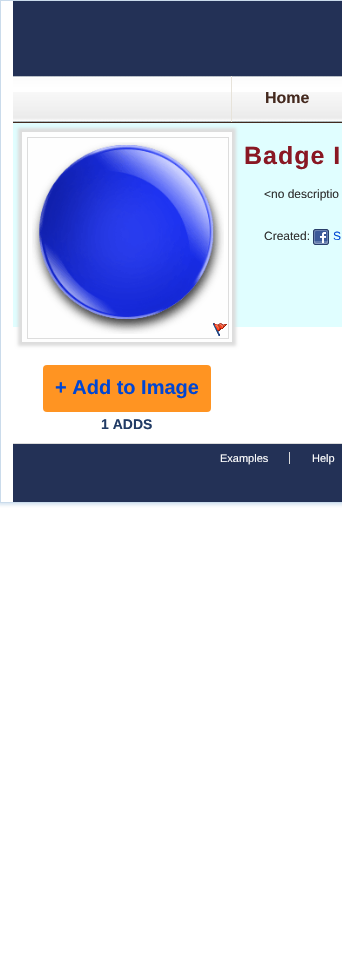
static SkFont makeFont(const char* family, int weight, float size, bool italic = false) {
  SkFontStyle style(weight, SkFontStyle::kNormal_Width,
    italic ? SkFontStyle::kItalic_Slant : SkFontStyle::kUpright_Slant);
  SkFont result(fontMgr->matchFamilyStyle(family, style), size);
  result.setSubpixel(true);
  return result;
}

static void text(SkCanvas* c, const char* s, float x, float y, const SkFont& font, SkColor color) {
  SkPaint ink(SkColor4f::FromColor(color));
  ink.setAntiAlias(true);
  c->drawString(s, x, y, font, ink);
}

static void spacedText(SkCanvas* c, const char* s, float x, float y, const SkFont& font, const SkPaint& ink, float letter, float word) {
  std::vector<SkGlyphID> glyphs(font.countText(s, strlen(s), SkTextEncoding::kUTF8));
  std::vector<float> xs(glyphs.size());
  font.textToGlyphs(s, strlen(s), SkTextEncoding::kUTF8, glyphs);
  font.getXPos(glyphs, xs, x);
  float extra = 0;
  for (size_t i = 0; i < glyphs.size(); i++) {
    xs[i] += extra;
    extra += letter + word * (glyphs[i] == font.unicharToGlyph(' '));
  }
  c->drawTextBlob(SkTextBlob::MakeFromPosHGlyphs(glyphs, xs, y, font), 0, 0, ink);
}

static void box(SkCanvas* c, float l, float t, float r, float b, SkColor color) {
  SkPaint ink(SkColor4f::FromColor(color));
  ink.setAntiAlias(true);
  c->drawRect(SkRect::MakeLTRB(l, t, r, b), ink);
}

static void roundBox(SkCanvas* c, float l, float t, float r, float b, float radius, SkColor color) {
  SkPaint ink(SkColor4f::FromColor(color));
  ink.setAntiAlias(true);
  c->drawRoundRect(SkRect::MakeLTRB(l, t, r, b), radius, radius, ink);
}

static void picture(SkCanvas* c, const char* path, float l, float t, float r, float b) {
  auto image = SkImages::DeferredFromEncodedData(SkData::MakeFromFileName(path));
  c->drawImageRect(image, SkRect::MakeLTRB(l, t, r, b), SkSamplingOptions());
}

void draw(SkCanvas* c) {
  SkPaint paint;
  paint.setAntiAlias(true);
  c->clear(0xffffffff);
  c->save();
  c->clipRect(SkRect::MakeLTRB(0, 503, 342, 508));
  paint.setColor(0xffd7e5f1);
  paint.setMaskFilter(SkMaskFilter::MakeBlur(kNormal_SkBlurStyle, 1.5f));
  c->drawRect(SkRect::MakeLTRB(-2, -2, 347, 505), paint);
  paint.setMaskFilter(nullptr);
  c->restore();
  paint.setStyle(SkPaint::kStroke_Style);
  paint.setStrokeWidth(1);
  paint.setColor(0xffcadbeb);
  c->drawRect(SkRect::MakeLTRB(0.5f, 0.5f, 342.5f, 502.5f), paint);
  box(c, 13, 1, 342, 76, 0xff233156);
  picture(c, "img_01.png", 13, 76, 342, 122);
  box(c, 13, 123, 342, 327, 0xffe0feff);
  paint.setStyle(SkPaint::kFill_Style);
  paint.setColor(0xffdddddd);
  paint.setMaskFilter(SkMaskFilter::MakeBlur(kNormal_SkBlurStyle, 1.5f));
  c->drawRect(SkRect::MakeLTRB(18, 128, 236, 346), paint);
  paint.setMaskFilter(nullptr);
  box(c, 13, 122, 342, 123, 0xff422a20);
  box(c, 231, 76, 232, 122, 0xffe7e3da);
  SkFont face1 = makeFont("Liberation Sans", 700, 16);
  text(c, "Home", 265, 103, face1, 0xff44291e);
  SkFont face2 = makeFont("Liberation Sans", 700, 25);
  paint.setColor(0xff891723);
  spacedText(c, "Badge I", 244, 164, face2, paint, 1, 0);
  SkFont face3 = makeFont("Liberation Sans", 400, 12);
  text(c, "<no descriptio", 264, 198, face3, 0xff303030);
  text(c, "Created:", 264, 240, face3, 0xff303030);
  picture(c, "img_02.png", 313, 229, 329, 245);
  text(c, "S", 333, 240, face3, 0xff0046d4);
  box(c, 22, 132, 232, 342, 0xfffefefe);
  picture(c, "img_03.png", 32, 142, 224, 334);
  paint.setStyle(SkPaint::kStroke_Style);
  paint.setColor(0xffdddddd);
  c->drawRect(SkRect::MakeLTRB(27.5f, 137.5f, 228.5f, 338.5f), paint);
  picture(c, "img_04.png", 213, 323, 227, 336);
  roundBox(c, 43, 365, 211, 412, 4, 0xffff9422);
  SkFont face4 = makeFont("Liberation Sans", 700, 20);
  text(c, "+ Add to Image", 55, 394, face4, 0xff0046d4);
  SkFont face5 = makeFont("Liberation Sans", 700, 14);
  text(c, "1 ADDS", 101, 429, face5, 0xff213b65);
  box(c, 13, 444, 342, 502, 0xff233156);
  box(c, 13, 443, 342, 444, 0xffdbdbdb);
  SkFont face6 = makeFont("Liberation Sans", 400, 11);
  text(c, "Examples", 220, 462, face6, 0xffffffff);
  text(c, "Help", 312, 462, face6, 0xffffffff);
  box(c, 289, 452, 290, 464, 0xffdbdbdb);
}
